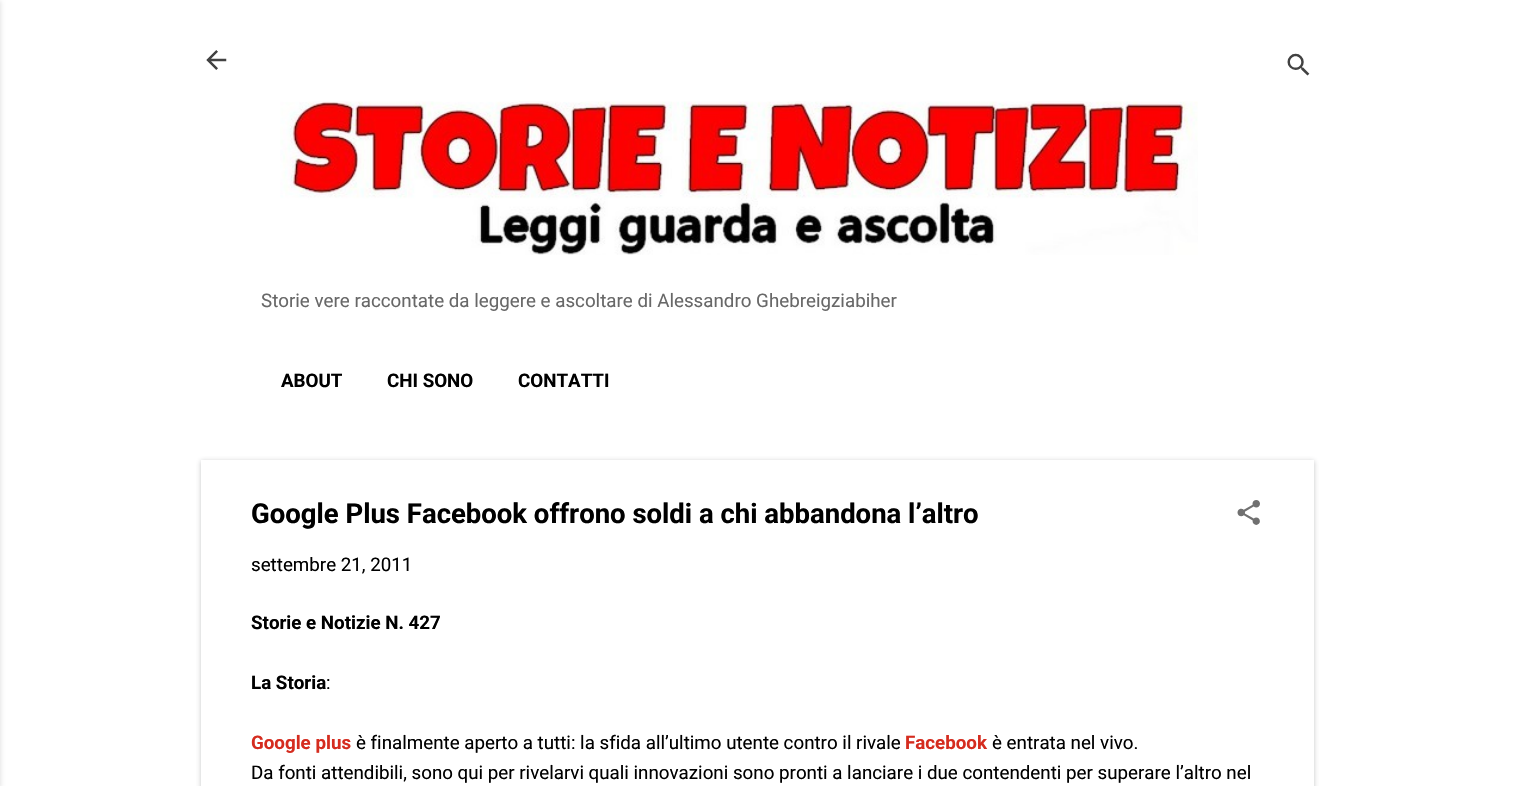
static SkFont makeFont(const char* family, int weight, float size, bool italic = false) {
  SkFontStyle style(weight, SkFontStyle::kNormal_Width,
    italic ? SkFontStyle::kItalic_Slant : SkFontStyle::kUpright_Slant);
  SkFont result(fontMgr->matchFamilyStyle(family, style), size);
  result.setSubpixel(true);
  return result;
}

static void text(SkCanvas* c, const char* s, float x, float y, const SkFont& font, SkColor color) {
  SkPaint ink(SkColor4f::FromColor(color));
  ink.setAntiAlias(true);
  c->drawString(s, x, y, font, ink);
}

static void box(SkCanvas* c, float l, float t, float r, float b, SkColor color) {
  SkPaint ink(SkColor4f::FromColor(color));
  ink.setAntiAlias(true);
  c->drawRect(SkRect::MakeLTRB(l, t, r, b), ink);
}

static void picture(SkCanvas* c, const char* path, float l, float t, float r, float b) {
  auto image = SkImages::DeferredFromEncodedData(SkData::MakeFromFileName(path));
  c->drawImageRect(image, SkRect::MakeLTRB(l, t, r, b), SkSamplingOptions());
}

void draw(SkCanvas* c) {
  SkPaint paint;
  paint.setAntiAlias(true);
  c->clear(0xffffffff);
  paint.setColor(0x1a000000);
  paint.setMaskFilter(SkMaskFilter::MakeBlur(kNormal_SkBlurStyle, 2));
  c->drawRect(SkRect::MakeLTRB(-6, 1, 1, 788), paint);
  paint.setMaskFilter(nullptr);
  picture(c, "img_01.png", 206, 50, 227, 70);
  picture(c, "img_02.png", 1287, 53, 1310, 76);
  picture(c, "img_03.png", 280, 101, 1198, 255);
  SkFont face1 = makeFont("Roboto", 400, 18.75f);
  text(c, "Storie vere raccontate da leggere e ascoltare di Alessandro Ghebreigziabiher", 261, 307, face1, 0xff686868);
  SkFont face2 = makeFont("Roboto", 700, 18.75f);
  text(c, "ABOUT", 281, 387, face2, 0xff000000);
  text(c, "CHI SONO", 387, 387, face2, 0xff000000);
  text(c, "CONTATTI", 518, 387, face2, 0xff000000);
  paint.setColor(0x4d3c4043);
  paint.setMaskFilter(SkMaskFilter::MakeBlur(kNormal_SkBlurStyle, 2.5f));
  c->drawRect(SkRect::MakeLTRB(201, 461, 1314, 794), paint);
  paint.setMaskFilter(nullptr);
  box(c, 201, 460, 1314, 786, 0xffffffff);
  SkFont face3 = makeFont("Roboto", 700, 27.5f);
  text(c, "Google Plus Facebook offrono soldi a chi abbandona l’altro", 251, 523, face3, 0xff000000);
  picture(c, "img_04.png", 1237, 500, 1260, 525);
  text(c, "settembre 21, 2011", 251, 571, face1, 0xff000000);
  text(c, "Storie e Notizie N. 427", 251, 629, face2, 0xff000000);
  text(c, "La Storia", 251, 689, face2, 0xff000000);
  text(c, ":", 326, 689, face1, 0xff000000);
  text(c, "Google plus", 251, 749, face2, 0xffd52c1f);
  text(c, "è finalmente aperto a tutti: la sfida all’ultimo utente contro il rivale", 356, 749, face1, 0xff000000);
  text(c, "Facebook", 905, 749, face2, 0xffd52c1f);
  text(c, "è entrata nel vivo.", 992, 749, face1, 0xff000000);
  text(c, "Da fonti attendibili, sono qui per rivelarvi quali innovazioni sono pronti a lanciare i due contendenti per superare l’altro nel", 251, 779, face1, 0xff000000);
}
